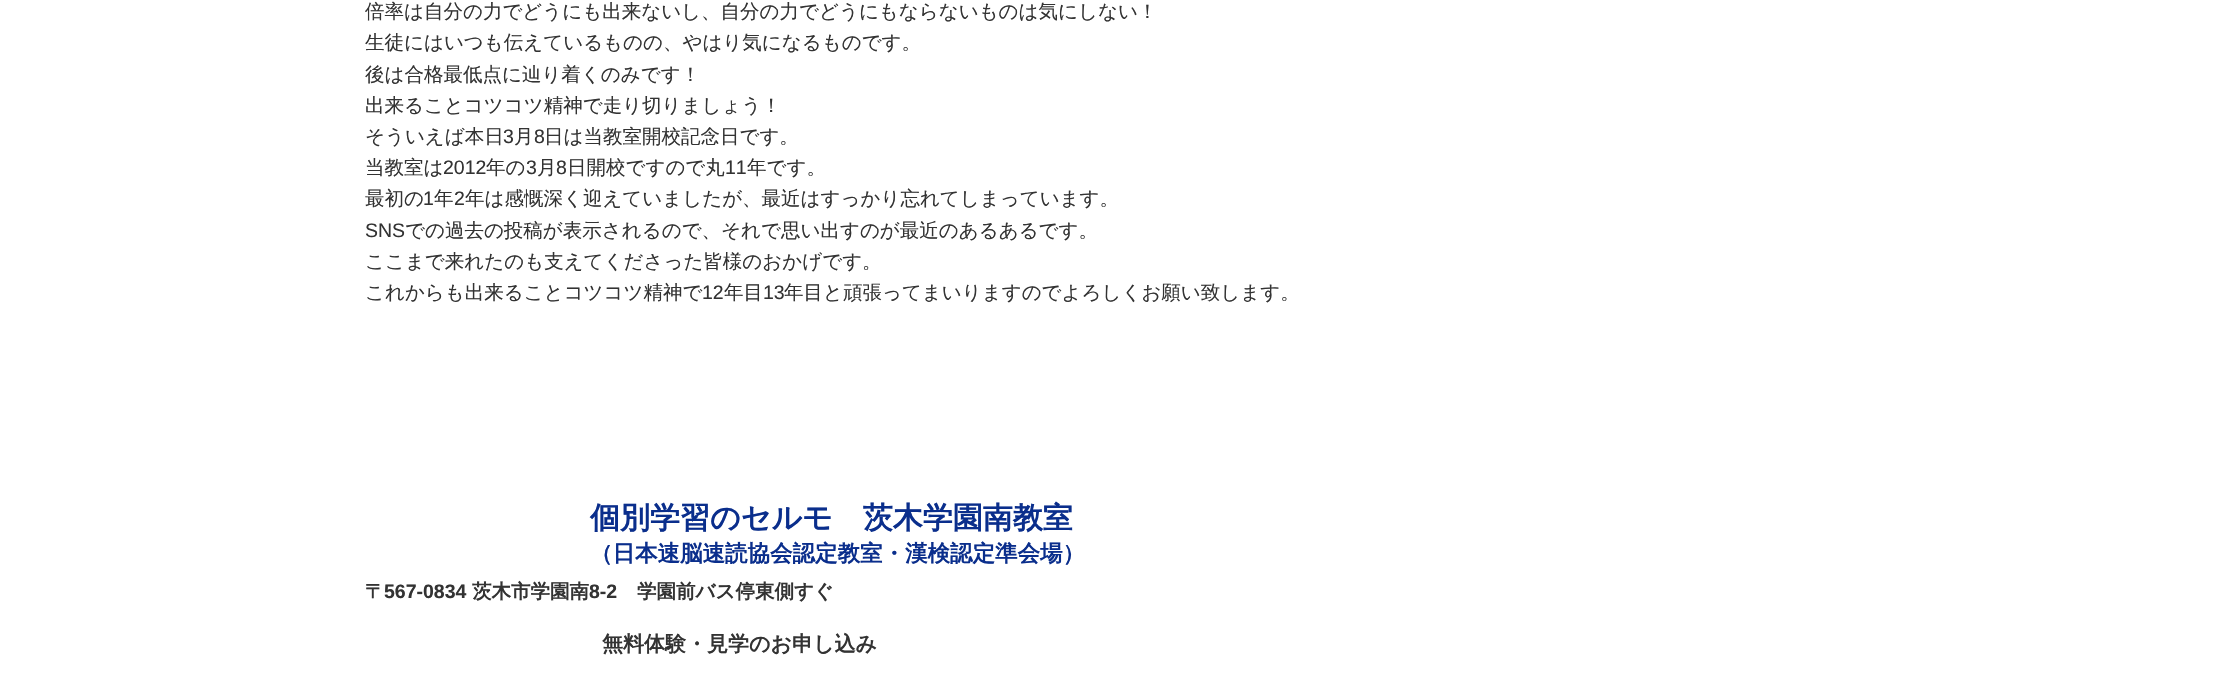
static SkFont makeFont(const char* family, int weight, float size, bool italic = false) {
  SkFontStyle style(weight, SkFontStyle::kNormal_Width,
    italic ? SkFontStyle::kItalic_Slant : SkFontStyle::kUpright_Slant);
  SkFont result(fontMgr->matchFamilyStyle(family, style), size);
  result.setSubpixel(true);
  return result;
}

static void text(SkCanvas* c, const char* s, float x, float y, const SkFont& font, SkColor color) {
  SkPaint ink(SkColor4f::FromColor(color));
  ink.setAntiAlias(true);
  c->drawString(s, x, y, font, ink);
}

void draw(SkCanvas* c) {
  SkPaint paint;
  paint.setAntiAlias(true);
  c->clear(0xffffffff);
  SkFont face1 = makeFont("WenQuanYi Zen Hei", 500, 19.5f);
  text(c, "倍率は自分の力でどうにも出来ないし、自分の力でどうにもならないものは気にしない！", 365, 18, face1, 0xff333333);
  text(c, "生徒にはいつも伝えているものの、やはり気になるものです。", 365, 49, face1, 0xff333333);
  text(c, "後は合格最低点に辿り着くのみです！", 365, 81, face1, 0xff333333);
  text(c, "出来ることコツコツ精神で走り切りましょう！", 365, 112, face1, 0xff333333);
  text(c, "そういえば本日", 365, 143, face1, 0xff333333);
  SkFont face2 = makeFont("Liberation Sans", 400, 19.5f);
  text(c, "3", 503, 143, face2, 0xff333333);
  text(c, "月", 514, 143, face1, 0xff333333);
  text(c, "8", 534, 143, face2, 0xff333333);
  text(c, "日は当教室開校記念日です。", 544, 143, face1, 0xff333333);
  text(c, "当教室は", 365, 174, face1, 0xff333333);
  text(c, "2012", 443, 174, face2, 0xff333333);
  text(c, "年の", 486, 174, face1, 0xff333333);
  text(c, "3", 526, 174, face2, 0xff333333);
  text(c, "月", 537, 174, face1, 0xff333333);
  text(c, "8", 556, 174, face2, 0xff333333);
  text(c, "日開校ですので丸", 567, 174, face1, 0xff333333);
  text(c, "11", 725, 174, face2, 0xff333333);
  text(c, "年です。", 747, 174, face1, 0xff333333);
  text(c, "最初の", 365, 205, face1, 0xff333333);
  text(c, "1", 423, 205, face2, 0xff333333);
  text(c, "年", 434, 205, face1, 0xff333333);
  text(c, "2", 454, 205, face2, 0xff333333);
  text(c, "年は感慨深く迎えていましたが、最近はすっかり忘れてしまっています。", 465, 205, face1, 0xff333333);
  text(c, "SNS", 365, 237, face2, 0xff333333);
  text(c, "での過去の投稿が表示されるので、それで思い出すのが最近のあるあるです。", 405, 237, face1, 0xff333333);
  text(c, "ここまで来れたのも支えてくださった皆様のおかげです。", 365, 268, face1, 0xff333333);
  text(c, "これからも出来ることコツコツ精神で", 365, 299, face1, 0xff333333);
  text(c, "12", 702, 299, face2, 0xff333333);
  text(c, "年目", 724, 299, face1, 0xff333333);
  text(c, "13", 763, 299, face2, 0xff333333);
  text(c, "年目と頑張ってまいりますのでよろしくお願い致します。", 784, 299, face1, 0xff333333);
  SkFont face3 = makeFont("WenQuanYi Zen Hei", 700, 30);
  text(c, "個別学習のセルモ　茨木学園南教室", 590, 528, face3, 0xff0a2e8c);
  SkFont face4 = makeFont("WenQuanYi Zen Hei", 700, 22.5f);
  text(c, "（日本速脳速読協会認定教室・漢検認定準会場）", 590, 561, face4, 0xff0a2e8c);
  SkFont face5 = makeFont("WenQuanYi Zen Hei", 700, 19.5f);
  text(c, "〒", 365, 598, face5, 0xff333333);
  SkFont face6 = makeFont("Liberation Sans", 700, 19.5f);
  text(c, "567-0834", 384, 598, face6, 0xff333333);
  text(c, "茨木市学園南", 472, 598, face5, 0xff333333);
  text(c, "8-2", 589, 598, face6, 0xff333333);
  text(c, "学園前バス停東側すぐ", 637, 598, face5, 0xff333333);
  SkFont face7 = makeFont("WenQuanYi Zen Hei", 700, 21);
  text(c, "無料体験・見学のお申し込み", 602, 651, face7, 0xff333333);
}
